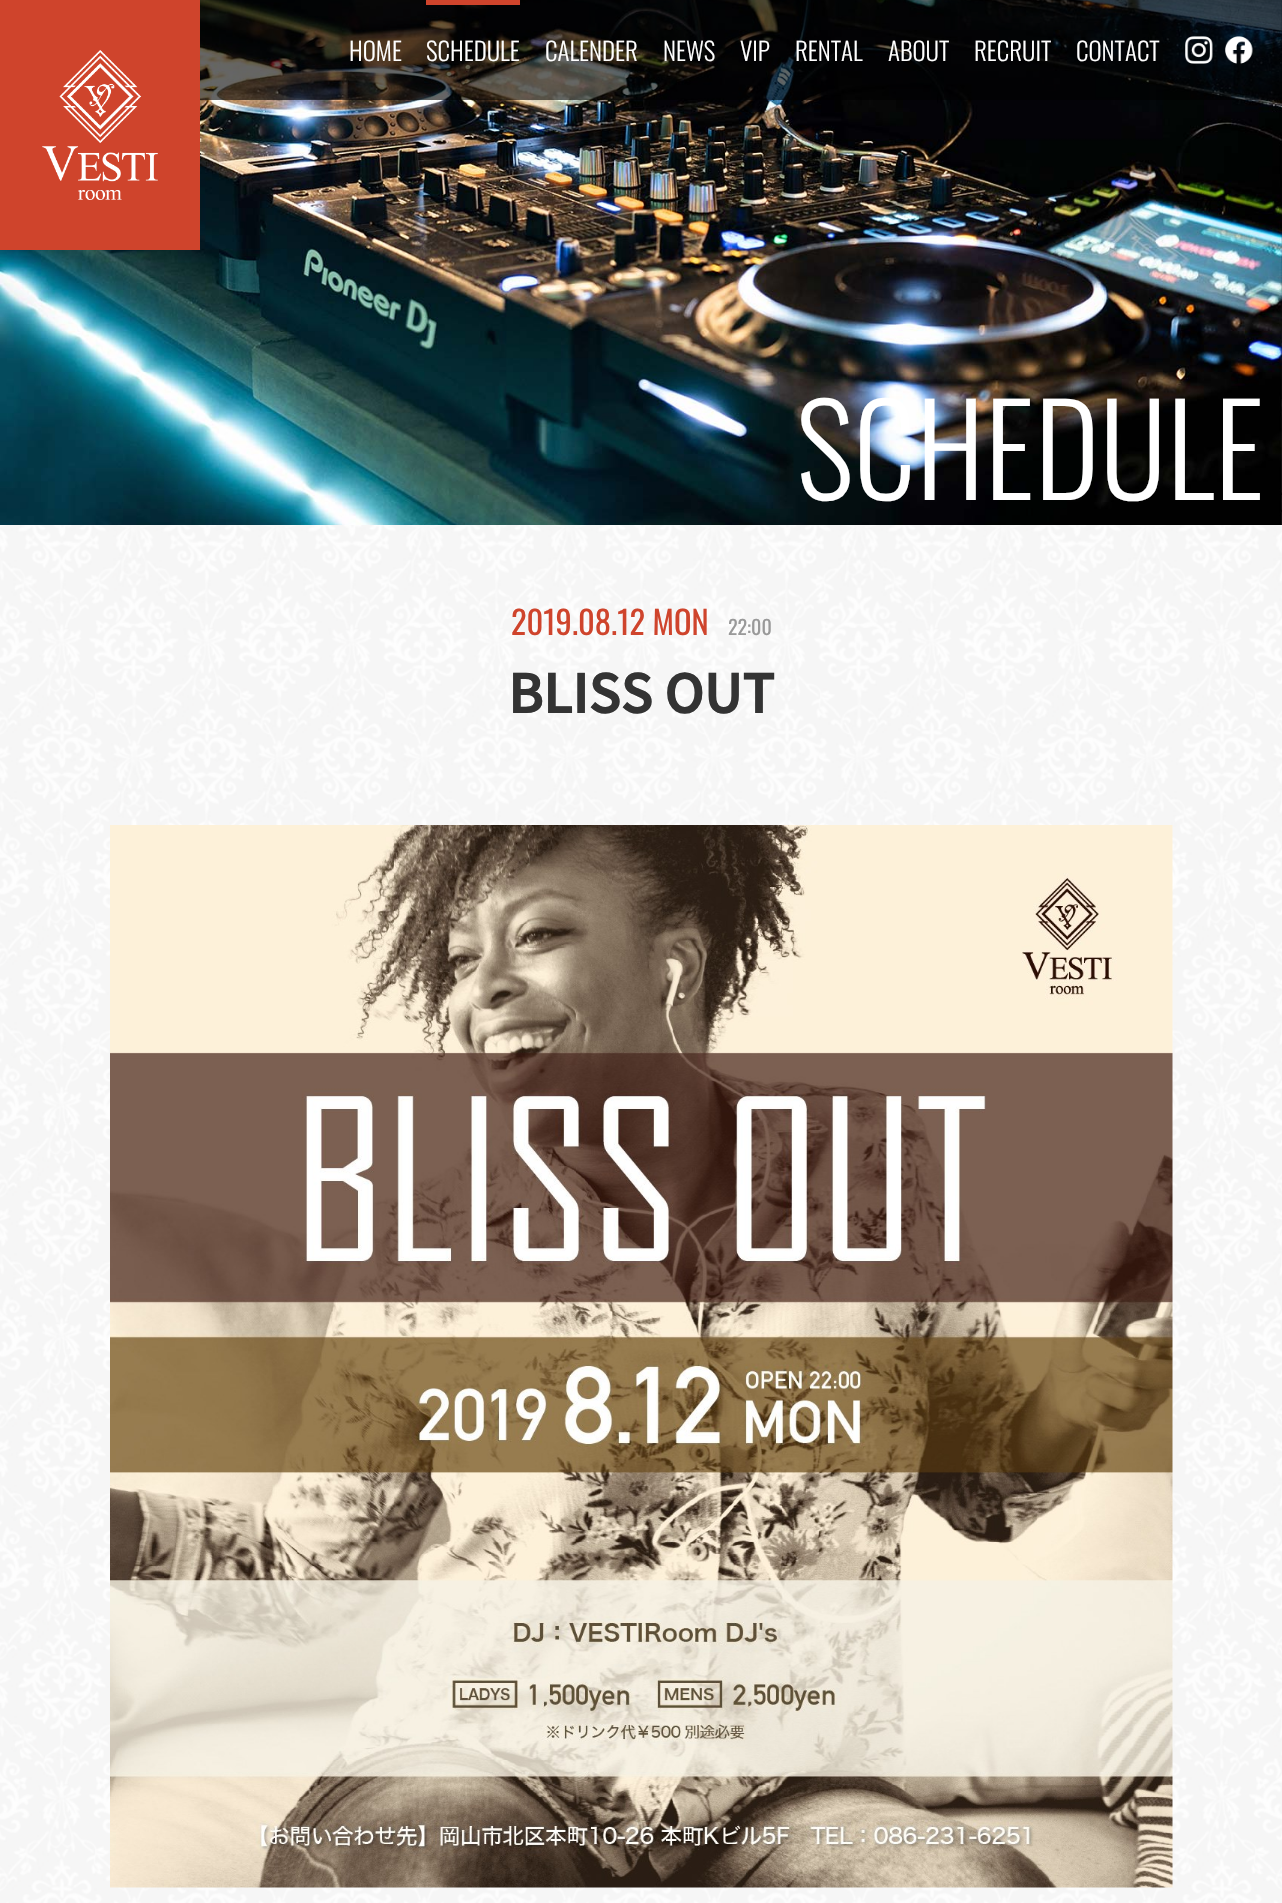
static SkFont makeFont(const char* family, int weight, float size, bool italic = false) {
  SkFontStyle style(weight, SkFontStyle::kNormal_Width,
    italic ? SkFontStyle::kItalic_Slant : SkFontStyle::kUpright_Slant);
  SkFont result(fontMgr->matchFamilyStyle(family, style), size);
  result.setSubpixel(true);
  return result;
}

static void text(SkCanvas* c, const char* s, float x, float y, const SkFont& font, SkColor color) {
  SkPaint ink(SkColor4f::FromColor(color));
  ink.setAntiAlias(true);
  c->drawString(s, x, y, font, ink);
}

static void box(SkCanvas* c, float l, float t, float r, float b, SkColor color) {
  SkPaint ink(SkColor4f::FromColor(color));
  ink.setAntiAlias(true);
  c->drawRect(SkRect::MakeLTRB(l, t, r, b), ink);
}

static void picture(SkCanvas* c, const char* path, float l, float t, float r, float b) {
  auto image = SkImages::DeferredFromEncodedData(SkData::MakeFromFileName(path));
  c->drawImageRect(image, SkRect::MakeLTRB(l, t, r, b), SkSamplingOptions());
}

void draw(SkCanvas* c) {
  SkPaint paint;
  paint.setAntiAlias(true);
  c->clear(0xffffffff);
  picture(c, "img_01.png", 0, 525, 1282, 1903);
  picture(c, "img_05.png", 0, 0, 1282, 525);
  box(c, 200, 0, 1282, 100, 0x99000000);
  box(c, 0, 0, 200, 250, 0xffcf442c);
  picture(c, "img_02.png", 42, 50, 158, 200);
  SkFont face1 = makeFont("Oswald", 300, 25);
  text(c, "HOME", 349, 61, face1, 0xffffffff);
  box(c, 426, 0, 520, 5, 0xffcf442c);
  text(c, "SCHEDULE", 426, 61, face1, 0xffffffff);
  text(c, "CALENDER", 545, 61, face1, 0xffffffff);
  text(c, "NEWS", 663, 61, face1, 0xffffffff);
  text(c, "VIP", 740, 61, face1, 0xffffffff);
  text(c, "RENTAL", 795, 61, face1, 0xffffffff);
  text(c, "ABOUT", 888, 61, face1, 0xffffffff);
  text(c, "RECRUIT", 974, 61, face1, 0xffffffff);
  text(c, "CONTACT", 1076, 61, face1, 0xffffffff);
  picture(c, "img_03.png", 1185, 36, 1213, 64);
  picture(c, "img_04.png", 1225, 36, 1253, 64);
  SkFont face2 = makeFont("Oswald", 300, 125);
  text(c, "SCHEDULE", 796, 500, face2, 0xffffffff);
  SkFont face3 = makeFont("Oswald", 400, 32.5f);
  text(c, "2019.08.12 MON", 511, 635, face3, 0xffcf442c);
  SkFont face4 = makeFont("Oswald", 400, 20);
  text(c, "22:00", 728, 635, face4, 0xff999999);
  SkFont face5 = makeFont("Noto Sans JP", 700, 52.5f);
  text(c, "BLISS OUT", 508, 713, face5, 0xff333333);
  picture(c, "img_06.png", 110, 825, 1173, 1888);
}
